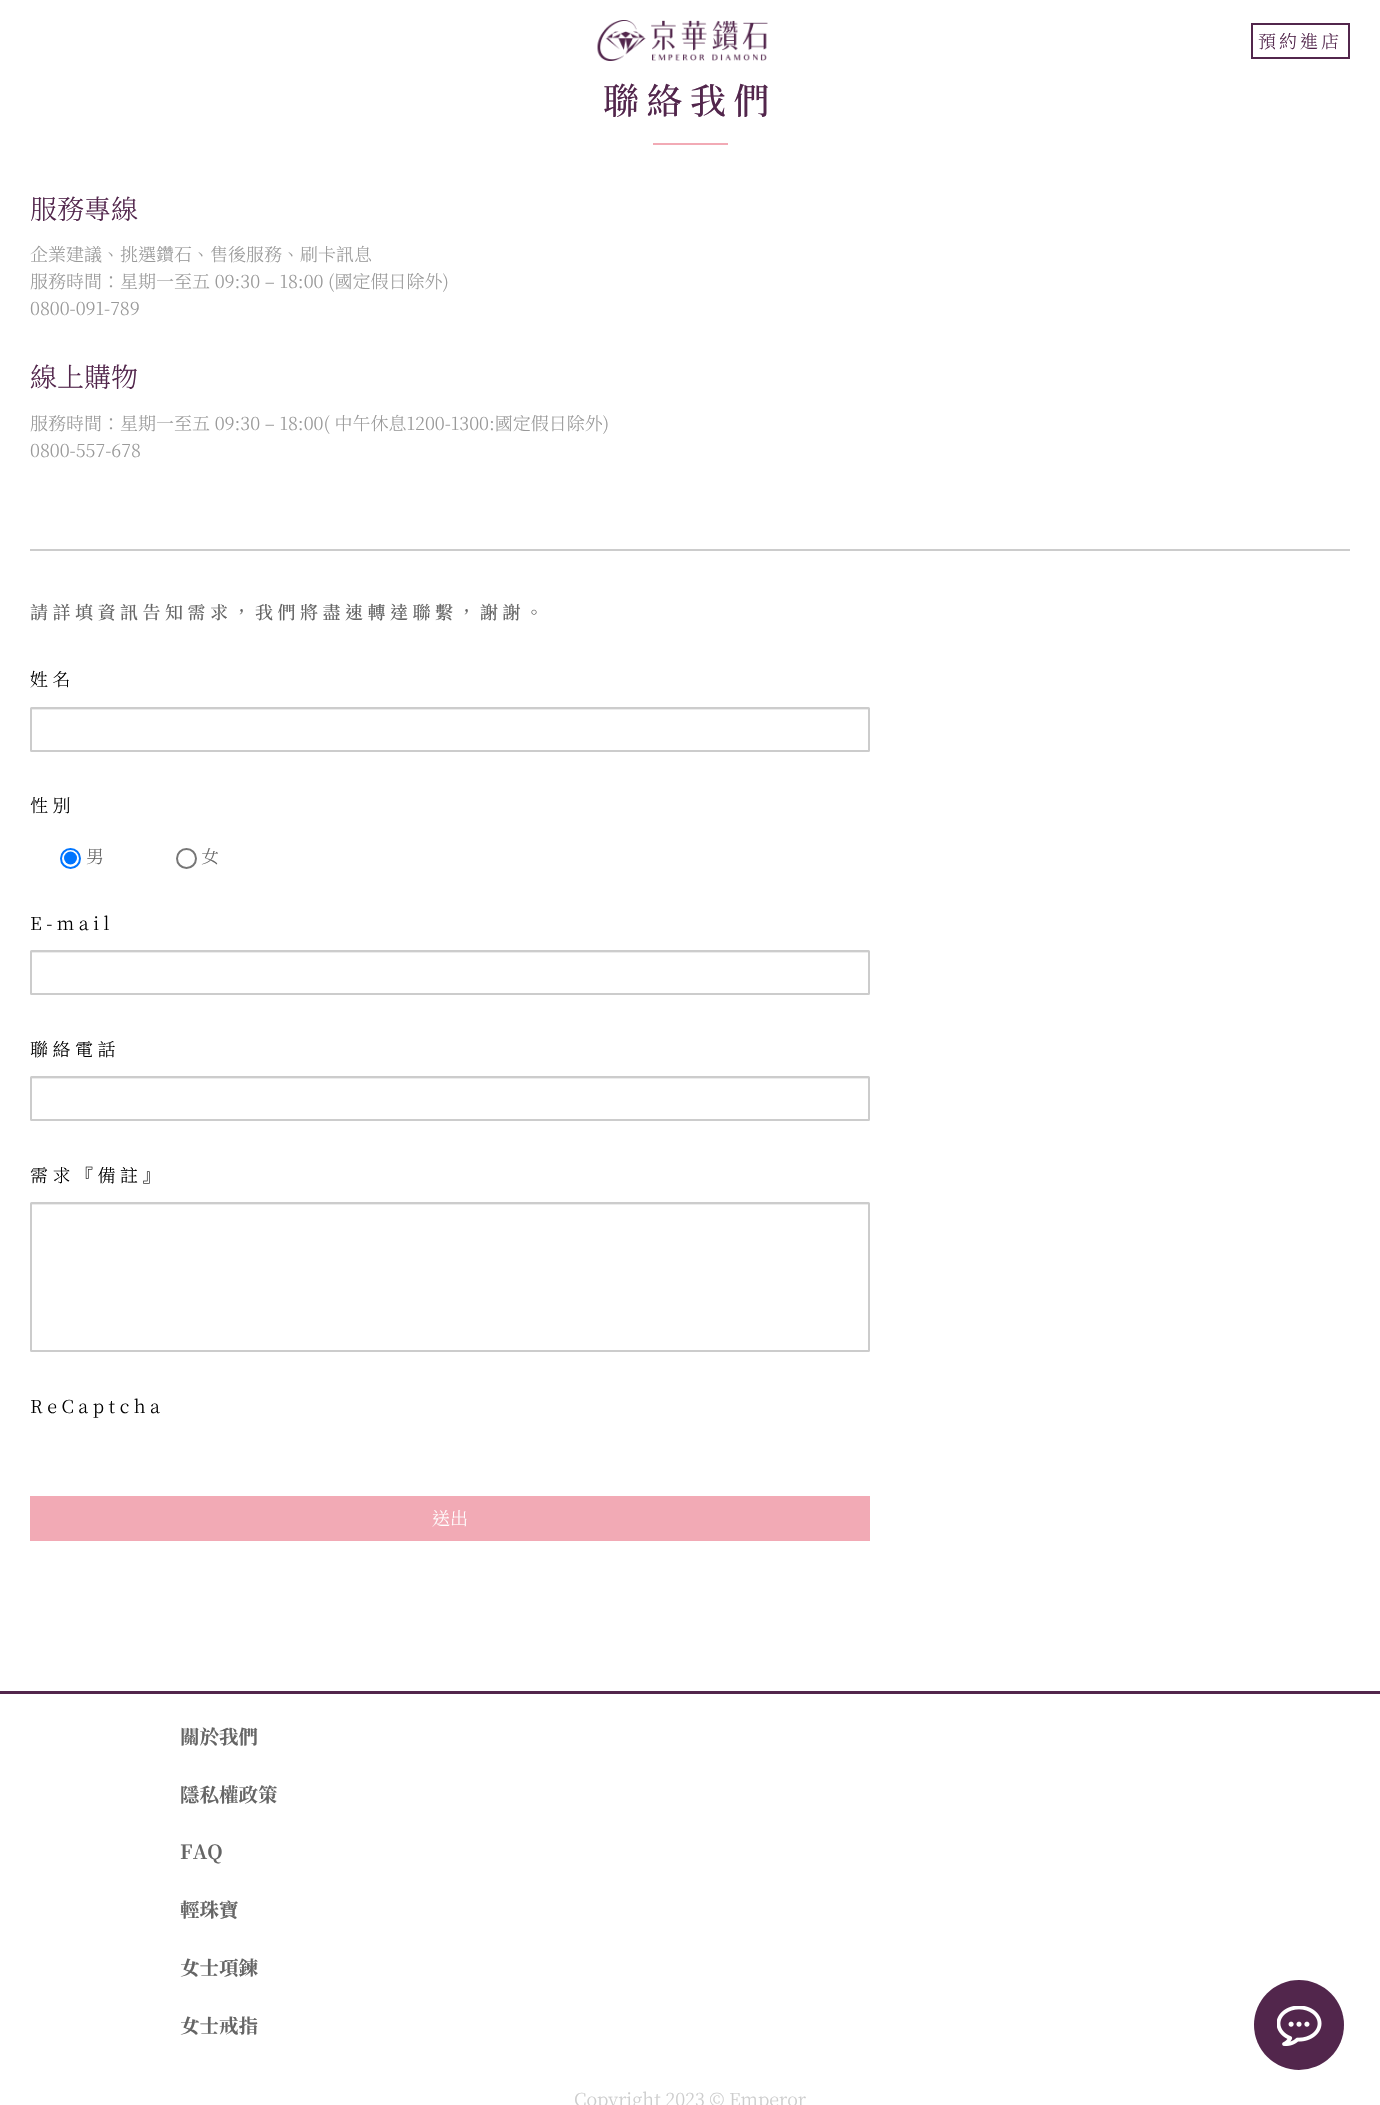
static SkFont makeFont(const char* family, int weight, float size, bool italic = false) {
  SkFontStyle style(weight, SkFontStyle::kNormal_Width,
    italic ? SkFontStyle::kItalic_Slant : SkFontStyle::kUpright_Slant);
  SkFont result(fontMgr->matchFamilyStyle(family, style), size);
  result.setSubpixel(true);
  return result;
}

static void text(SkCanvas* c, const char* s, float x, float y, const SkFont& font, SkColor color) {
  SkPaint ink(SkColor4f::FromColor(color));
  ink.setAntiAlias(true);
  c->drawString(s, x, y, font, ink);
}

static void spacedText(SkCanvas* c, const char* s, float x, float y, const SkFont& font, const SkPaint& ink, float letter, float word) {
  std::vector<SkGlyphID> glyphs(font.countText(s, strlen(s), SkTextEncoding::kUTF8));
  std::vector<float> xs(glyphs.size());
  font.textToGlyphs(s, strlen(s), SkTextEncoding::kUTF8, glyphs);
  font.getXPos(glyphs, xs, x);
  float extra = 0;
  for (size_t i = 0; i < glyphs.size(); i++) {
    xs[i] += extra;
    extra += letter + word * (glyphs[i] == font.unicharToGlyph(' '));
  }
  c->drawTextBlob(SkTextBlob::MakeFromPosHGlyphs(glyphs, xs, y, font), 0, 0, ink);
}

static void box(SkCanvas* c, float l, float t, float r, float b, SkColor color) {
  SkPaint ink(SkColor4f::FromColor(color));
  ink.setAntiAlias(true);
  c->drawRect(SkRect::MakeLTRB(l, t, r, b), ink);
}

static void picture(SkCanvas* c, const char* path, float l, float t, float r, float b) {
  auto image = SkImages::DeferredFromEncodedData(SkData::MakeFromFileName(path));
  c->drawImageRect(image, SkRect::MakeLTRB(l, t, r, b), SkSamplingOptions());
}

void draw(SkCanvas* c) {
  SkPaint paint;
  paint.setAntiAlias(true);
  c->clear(0xffffffff);
  picture(c, "img_01.png", 597, 20, 768, 61);
  paint.setStyle(SkPaint::kStroke_Style);
  paint.setStrokeWidth(2);
  paint.setColor(0xff52264c);
  c->drawRect(SkRect::MakeLTRB(1252, 24, 1349, 58), paint);
  SkFont face1 = makeFont("Noto Serif TC", 300, 18);
  paint.setStyle(SkPaint::kFill_Style);
  spacedText(c, "預約進店", 1258, 48, face1, paint, 3, 0);
  SkFont face2 = makeFont("Noto Serif TC", 500, 36);
  spacedText(c, "聯絡我們", 603, 114, face2, paint, 7.5f, 0);
  box(c, 653, 143, 728, 145, 0xfff2aab5);
  SkFont face3 = makeFont("Noto Serif TC", 300, 27);
  text(c, "服務專線", 30, 219, face3, 0xff52264c);
  text(c, "企業建議、挑選鑽石、售後服務、刷卡訊息", 30, 261, face1, 0xff999999);
  text(c, "服務時間：星期一至五 09:30 – 18:00 (國定假日除外)", 30, 288, face1, 0xff999999);
  text(c, "0800-091-789", 30, 315, face1, 0xff999999);
  text(c, "線上購物", 30, 387, face3, 0xff52264c);
  text(c, "服務時間：星期一至五 09:30 – 18:00( 中午休息1200-1300:國定假日除外)", 30, 430, face1, 0xff999999);
  text(c, "0800-557-678", 30, 457, face1, 0xff999999);
  box(c, 30, 549, 1350, 551, 0xffcccccc);
  SkFont face4 = makeFont("Noto Serif TC", 500, 18);
  paint.setColor(0xff656565);
  spacedText(c, "請詳填資訊告知需求，我們將盡速轉達聯繫，謝謝。", 30, 619, face4, paint, 4.5f, 0);
  paint.setColor(0xff000000);
  spacedText(c, "姓名", 30, 686, face1, paint, 4.5f, 0);
  box(c, 32, 709, 869, 710, 0xffececec);
  paint.setStyle(SkPaint::kStroke_Style);
  paint.setColor(0xffcccccc);
  c->drawRoundRect(SkRect::MakeLTRB(31, 708, 869, 751), 0.5f, 0.5f, paint);
  paint.setStyle(SkPaint::kFill_Style);
  paint.setColor(0xff000000);
  spacedText(c, "性別", 30, 812, face1, paint, 4.5f, 0);
  paint.setStyle(SkPaint::kStroke_Style);
  paint.setColor(0xff0075ff);
  c->drawCircle(70.5f, 858.5f, 9.5f, paint);
  paint.setStyle(SkPaint::kFill_Style);
  c->drawCircle(70.5f, 858, 6.5f, paint);
  text(c, "男", 86, 863, face1, 0xff656565);
  paint.setStyle(SkPaint::kStroke_Style);
  paint.setColor(0xff767676);
  c->drawCircle(186.5f, 858.5f, 9.5f, paint);
  text(c, "女", 201, 863, face1, 0xff656565);
  paint.setStyle(SkPaint::kFill_Style);
  paint.setColor(0xff000000);
  spacedText(c, "E-mail", 30, 930, face1, paint, 4.5f, 0);
  box(c, 32, 952, 869, 953, 0xffececec);
  paint.setStyle(SkPaint::kStroke_Style);
  paint.setColor(0xffcccccc);
  c->drawRoundRect(SkRect::MakeLTRB(31, 951, 869, 994), 0.5f, 0.5f, paint);
  paint.setStyle(SkPaint::kFill_Style);
  paint.setColor(0xff000000);
  spacedText(c, "聯絡電話", 30, 1056, face1, paint, 4.5f, 0);
  box(c, 32, 1078, 869, 1079, 0xffececec);
  paint.setStyle(SkPaint::kStroke_Style);
  paint.setColor(0xffcccccc);
  c->drawRoundRect(SkRect::MakeLTRB(31, 1077, 869, 1120), 0.5f, 0.5f, paint);
  paint.setStyle(SkPaint::kFill_Style);
  paint.setColor(0xff000000);
  spacedText(c, "需求『備註』", 30, 1182, face1, paint, 4.5f, 0);
  box(c, 32, 1204, 869, 1205, 0xffececec);
  paint.setStyle(SkPaint::kStroke_Style);
  paint.setColor(0xffcccccc);
  c->drawRoundRect(SkRect::MakeLTRB(31, 1203, 869, 1351), 0.5f, 0.5f, paint);
  paint.setStyle(SkPaint::kFill_Style);
  paint.setColor(0xff000000);
  spacedText(c, "ReCaptcha", 30, 1413, face1, paint, 4.5f, 0);
  box(c, 30, 1496, 870, 1541, 0xfff2aab5);
  text(c, "送出", 432, 1525, face1, 0xffffffff);
  box(c, 0, 1691, 1380, 1694, 0xff52264c);
  SkFont face5 = makeFont("Noto Serif TC", 700, 19.5f);
  text(c, "關於我們", 180, 1744, face5, 0xff656565);
  text(c, "隱私權政策", 180, 1802, face5, 0xff656565);
  text(c, "FAQ", 180, 1859, face5, 0xff656565);
  text(c, "輕珠寶", 180, 1917, face5, 0xff656565);
  text(c, "女士項鍊", 180, 1975, face5, 0xff656565);
  text(c, "女士戒指", 180, 2033, face5, 0xff656565);
  text(c, "Copyright 2023 © Emperor", 574, 2106, face1, 0xffcccccc);
  paint.setColor(0xff52264c);
  c->drawCircle(1299, 2025, 45, paint);
  picture(c, "img_02.png", 1277, 2006, 1322, 2046);
}
